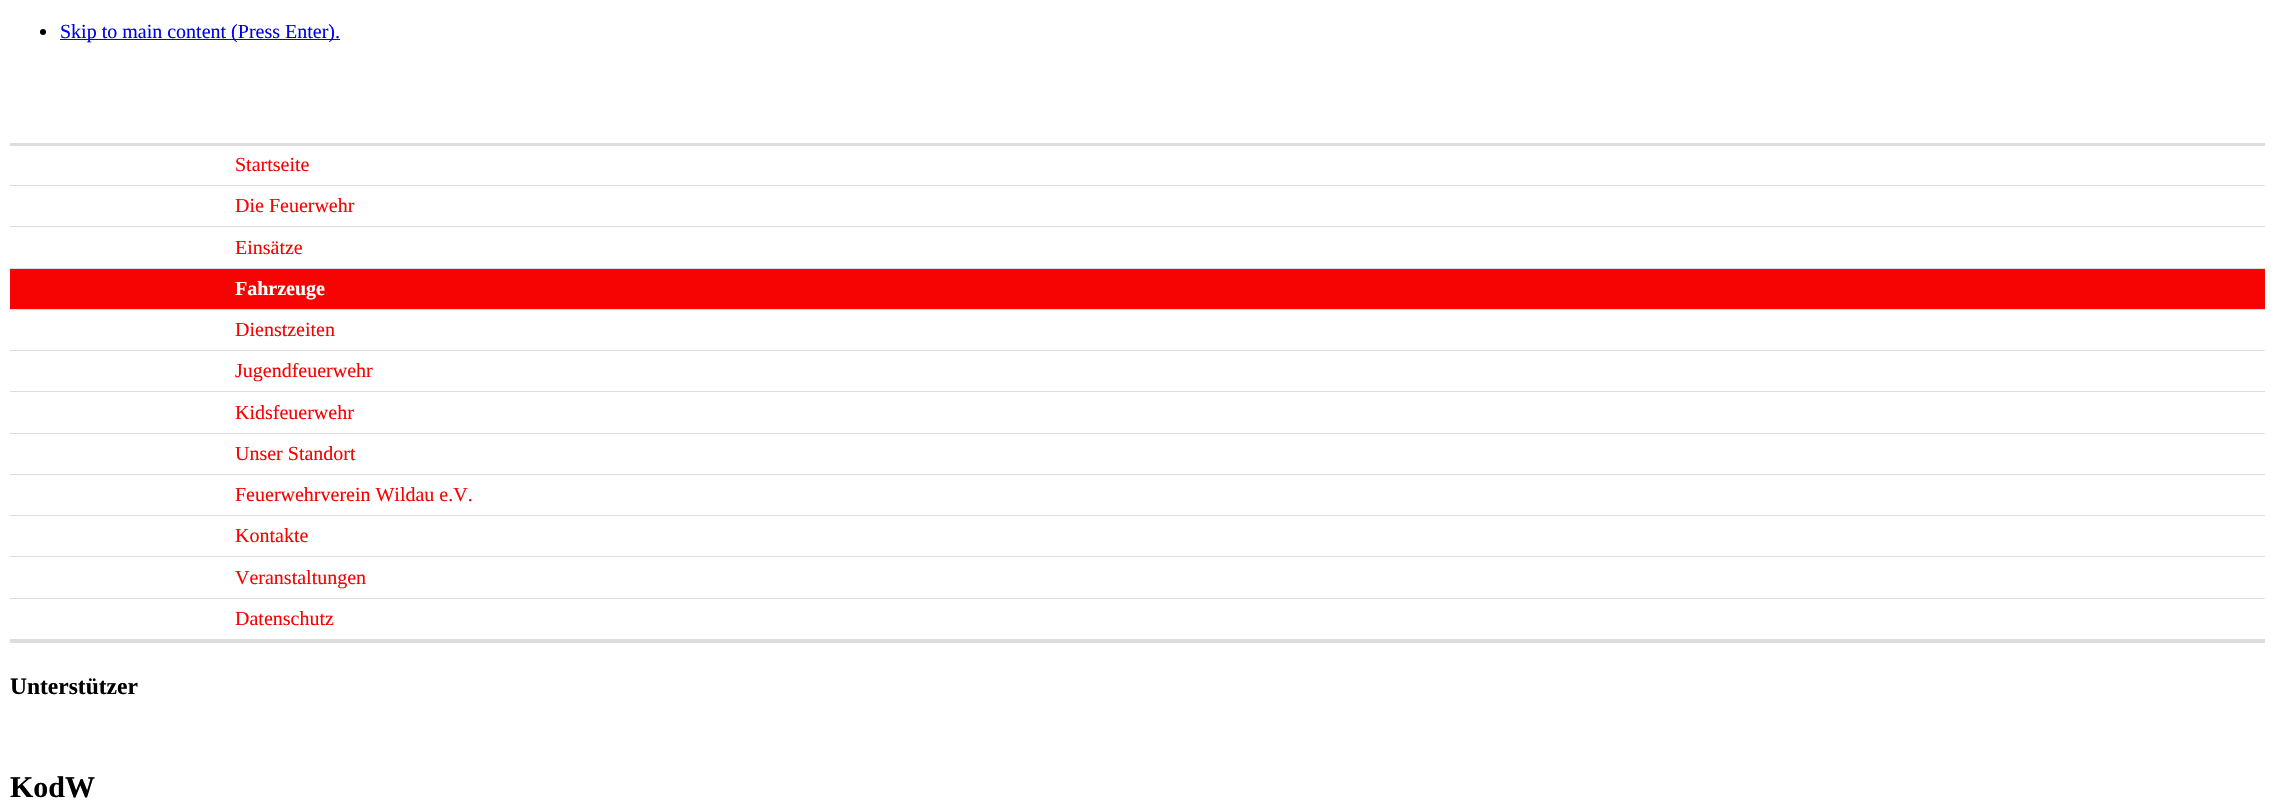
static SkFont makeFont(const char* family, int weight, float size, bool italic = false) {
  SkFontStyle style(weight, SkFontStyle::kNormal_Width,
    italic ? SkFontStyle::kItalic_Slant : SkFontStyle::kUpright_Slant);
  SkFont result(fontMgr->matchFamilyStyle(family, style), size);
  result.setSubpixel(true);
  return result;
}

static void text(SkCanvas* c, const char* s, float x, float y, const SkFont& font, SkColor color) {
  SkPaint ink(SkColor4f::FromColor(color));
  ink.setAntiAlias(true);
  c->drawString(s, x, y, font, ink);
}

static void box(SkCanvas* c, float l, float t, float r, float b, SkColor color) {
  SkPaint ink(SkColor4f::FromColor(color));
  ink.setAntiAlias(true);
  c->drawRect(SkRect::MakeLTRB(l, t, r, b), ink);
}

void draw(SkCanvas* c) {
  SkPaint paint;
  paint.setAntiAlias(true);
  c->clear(0xffffffff);
  paint.setColor(0xff000000);
  c->drawCircle(43, 32, 3, paint);
  box(c, 60, 39, 340, 40, 0xff0000ee);
  SkFont face1 = makeFont("Liberation Serif", 400, 20);
  text(c, "Skip to main content (Press Enter).", 60, 38, face1, 0xff0000ee);
  box(c, 10, 143, 2265, 146, 0xffdddddd);
  box(c, 10, 639, 2265, 643, 0xffdddddd);
  box(c, 10, 185, 2265, 186, 0xffdddddd);
  text(c, "Startseite", 235, 171, face1, 0xfff60303);
  box(c, 10, 226, 2265, 227, 0xffdddddd);
  text(c, "Die Feuerwehr", 235, 212, face1, 0xfff60303);
  box(c, 10, 268, 2265, 269, 0xffdddddd);
  text(c, "Einsätze", 235, 254, face1, 0xfff60303);
  box(c, 10, 269, 2265, 309, 0xfff60303);
  box(c, 10, 309, 2265, 310, 0xffdddddd);
  SkFont face2 = makeFont("Liberation Serif", 700, 20);
  text(c, "Fahrzeuge", 235, 295, face2, 0xffffffff);
  box(c, 10, 350, 2265, 351, 0xffdddddd);
  text(c, "Dienstzeiten", 235, 336, face1, 0xfff60303);
  box(c, 10, 391, 2265, 392, 0xffdddddd);
  text(c, "Jugendfeuerwehr", 235, 377, face1, 0xfff60303);
  box(c, 10, 433, 2265, 434, 0xffdddddd);
  text(c, "Kidsfeuerwehr", 235, 419, face1, 0xfff60303);
  box(c, 10, 474, 2265, 475, 0xffdddddd);
  text(c, "Unser Standort", 235, 460, face1, 0xfff60303);
  box(c, 10, 515, 2265, 516, 0xffdddddd);
  text(c, "Feuerwehrverein Wildau e.V.", 235, 501, face1, 0xfff60303);
  box(c, 10, 556, 2265, 557, 0xffdddddd);
  text(c, "Kontakte", 235, 542, face1, 0xfff60303);
  box(c, 10, 598, 2265, 599, 0xffdddddd);
  text(c, "Veranstaltungen", 235, 584, face1, 0xfff60303);
  text(c, "Datenschutz", 235, 625, face1, 0xfff60303);
  SkFont face3 = makeFont("Liberation Serif", 700, 23.5f);
  text(c, "Unterstützer", 10, 694, face3, 0xff000000);
  SkFont face4 = makeFont("Liberation Serif", 700, 30);
  text(c, "KodW", 10, 797, face4, 0xff000000);
}
